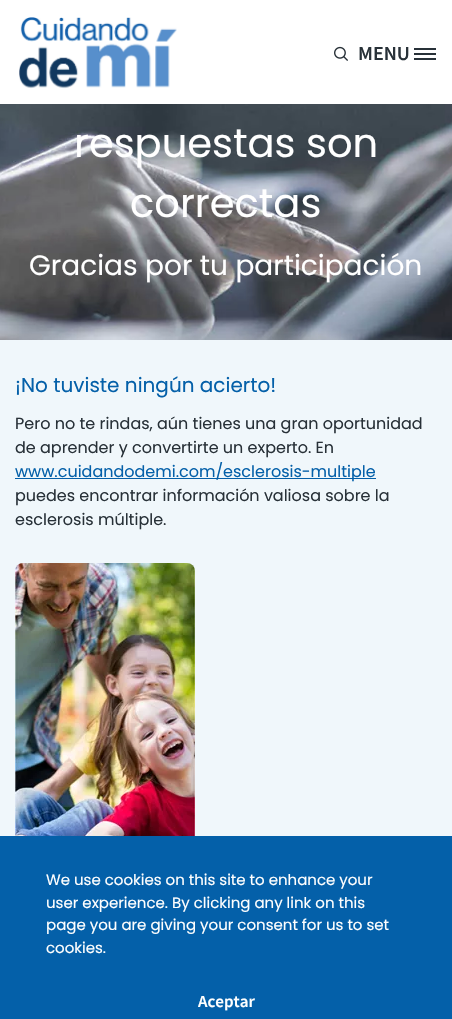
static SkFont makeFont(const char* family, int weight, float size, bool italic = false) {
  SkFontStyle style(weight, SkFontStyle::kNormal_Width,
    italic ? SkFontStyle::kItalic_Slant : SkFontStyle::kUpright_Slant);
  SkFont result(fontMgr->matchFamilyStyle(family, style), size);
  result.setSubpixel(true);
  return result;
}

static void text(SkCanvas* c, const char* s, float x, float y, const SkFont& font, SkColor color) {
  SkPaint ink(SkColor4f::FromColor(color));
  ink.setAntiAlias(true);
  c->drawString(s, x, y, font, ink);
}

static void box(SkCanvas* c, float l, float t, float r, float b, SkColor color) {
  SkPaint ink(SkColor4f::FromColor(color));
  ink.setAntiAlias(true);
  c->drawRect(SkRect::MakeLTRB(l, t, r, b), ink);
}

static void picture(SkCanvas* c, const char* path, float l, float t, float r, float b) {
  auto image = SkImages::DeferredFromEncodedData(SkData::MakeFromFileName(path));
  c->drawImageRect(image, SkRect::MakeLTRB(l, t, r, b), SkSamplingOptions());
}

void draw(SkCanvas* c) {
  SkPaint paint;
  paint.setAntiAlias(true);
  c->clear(0xffffffff);
  picture(c, "img_01.png", 19, 17, 177, 89);
  picture(c, "img_02.png", 334, 46, 348, 61);
  SkFont face1 = makeFont("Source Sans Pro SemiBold", 600, 20);
  text(c, "MENU", 358, 60, face1, 0xff283138);
  box(c, 414, 48, 436, 50, 0xff283138);
  box(c, 414, 53, 436, 55, 0xff283138);
  box(c, 414, 58, 436, 60, 0xff283138);
  picture(c, "img_03.png", 0, 104, 452, 340);
  SkFont face2 = makeFont("Poppins", 400, 40);
  text(c, "respuestas son", 74, 157, face2, 0xffffffff);
  text(c, "correctas", 130, 217, face2, 0xffffffff);
  SkFont face3 = makeFont("Poppins", 400, 28);
  text(c, "Gracias por tu participación", 29, 275, face3, 0xffffffff);
  box(c, 0, 340, 452, 836, 0xfff0f7fb);
  SkFont face4 = makeFont("Poppins", 400, 20);
  text(c, "¡No tuviste ningún acierto!", 15, 392, face4, 0xff0460a9);
  SkFont face5 = makeFont("Poppins", 400, 16);
  text(c, "Pero no te rindas, aún tienes una gran oportunidad", 15, 429, face5, 0xff283138);
  text(c, "de aprender y convertirte un experto. En", 15, 453, face5, 0xff283138);
  box(c, 15, 478, 376, 479, 0xff0460a9);
  text(c, "www.cuidandodemi.com/esclerosis-multiple", 15, 477, face5, 0xff0460a9);
  text(c, "puedes encontrar información valiosa sobre la", 15, 501, face5, 0xff283138);
  text(c, "esclerosis múltiple.", 15, 525, face5, 0xff283138);
  picture(c, "img_04.png", 15, 563, 195, 836);
  box(c, 0, 836, 452, 1019, 0xff0460a9);
  SkFont face6 = makeFont("Poppins", 400, 15);
  text(c, "We use cookies on this site to enhance your", 46, 885, face6, 0xffffffff);
  text(c, "user experience. By clicking any link on this", 46, 908, face6, 0xffffffff);
  text(c, "page you are giving your consent for us to set", 46, 930, face6, 0xffffffff);
  text(c, "cookies.", 46, 953, face6, 0xffffffff);
  SkFont face7 = makeFont("Source Sans Pro SemiBold", 600, 17);
  text(c, "Aceptar", 198, 1007, face7, 0xffffffff);
}
